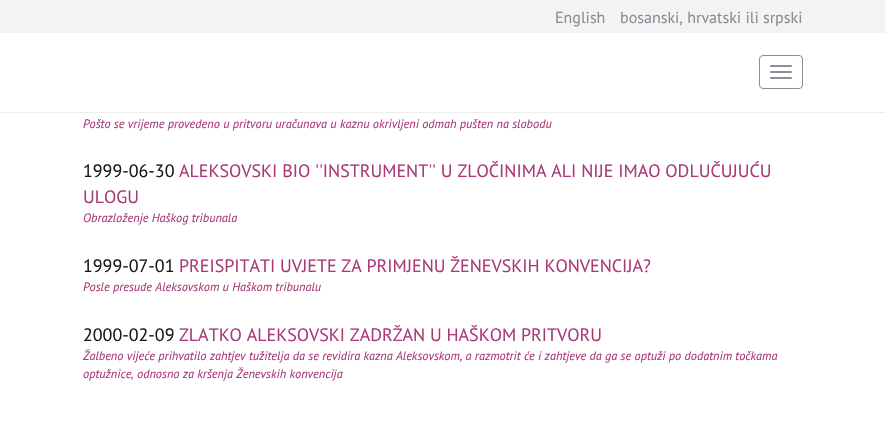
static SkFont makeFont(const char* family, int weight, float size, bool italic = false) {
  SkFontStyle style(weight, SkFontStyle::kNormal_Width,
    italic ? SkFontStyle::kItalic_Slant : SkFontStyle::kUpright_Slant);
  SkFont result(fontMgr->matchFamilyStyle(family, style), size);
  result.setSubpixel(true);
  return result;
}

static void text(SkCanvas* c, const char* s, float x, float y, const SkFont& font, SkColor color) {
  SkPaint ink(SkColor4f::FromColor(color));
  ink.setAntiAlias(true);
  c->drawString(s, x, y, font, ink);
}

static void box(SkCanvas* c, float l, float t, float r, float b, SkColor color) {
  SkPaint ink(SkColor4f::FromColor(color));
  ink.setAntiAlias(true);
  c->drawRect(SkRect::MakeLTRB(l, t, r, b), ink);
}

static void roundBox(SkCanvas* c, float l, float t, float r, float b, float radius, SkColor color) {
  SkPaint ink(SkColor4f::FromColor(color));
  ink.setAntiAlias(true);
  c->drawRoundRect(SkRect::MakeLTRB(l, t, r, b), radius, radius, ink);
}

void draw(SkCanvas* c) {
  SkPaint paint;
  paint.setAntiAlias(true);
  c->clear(0xffffffff);
  box(c, 0, 112, 885, 113, 0xffeceded);
  box(c, 0, 0, 885, 33, 0xfff3f3f4);
  SkFont face1 = makeFont("PT Sans", 400, 16);
  text(c, "English", 555, 23, face1, 0xff8e8a97);
  text(c, "bosanski, hrvatski ili srpski", 620, 23, face1, 0xff8e8a97);
  paint.setStyle(SkPaint::kStroke_Style);
  paint.setStrokeWidth(1);
  paint.setColor(0xff8e8a97);
  c->drawRoundRect(SkRect::MakeLTRB(759.5f, 55.5f, 802.5f, 88.5f), 3.5f, 3.5f, paint);
  roundBox(c, 770, 65, 792, 67, 1, 0xff8e8a97);
  roundBox(c, 770, 71, 792, 73, 1, 0xff8e8a97);
  roundBox(c, 770, 77, 792, 79, 1, 0xff8e8a97);
  SkFont face2 = makeFont("PT Sans", 400, 12.32f, true);
  text(c, "Pošto se vrijeme provedeno u pritvoru uračunava u kaznu okrivljeni odmah pušten na slobodu", 83, 128, face2, 0xffa93978);
  SkFont face3 = makeFont("PT Sans", 400, 18);
  text(c, "ALEKSOVSKI BIO ''INSTRUMENT'' U ZLOČINIMA ALI NIJE IMAO ODLUČUJUĆU", 179, 177, face3, 0xffa93978);
  text(c, "ULOGU", 83, 203, face3, 0xffa93978);
  text(c, "Obrazloženje Haškog tribunala", 83, 222, face2, 0xffa93978);
  text(c, "1999-06-30", 83, 177, face3, 0xff19181b);
  text(c, "PREISPITATI UVJETE ZA PRIMJENU ŽENEVSKIH KONVENCIJA?", 179, 272, face3, 0xffa93978);
  text(c, "Posle presude Aleksovskom u Haškom tribunalu", 83, 291, face2, 0xffa93978);
  text(c, "1999-07-01", 83, 272, face3, 0xff19181b);
  text(c, "ZLATKO ALEKSOVSKI ZADRŽAN U HAŠKOM PRITVORU", 179, 341, face3, 0xffa93978);
  text(c, "Žalbeno vijeće prihvatilo zahtjev tužitelja da se revidira kazna Aleksovskom, a razmotrit će i zahtjeve da ga se optuži po dodatnim točkama", 83, 360, face2, 0xffa93978);
  text(c, "optužnice, odnosno za kršenja Ženevskih konvencija", 83, 378, face2, 0xffa93978);
  text(c, "2000-02-09", 83, 341, face3, 0xff19181b);
}
